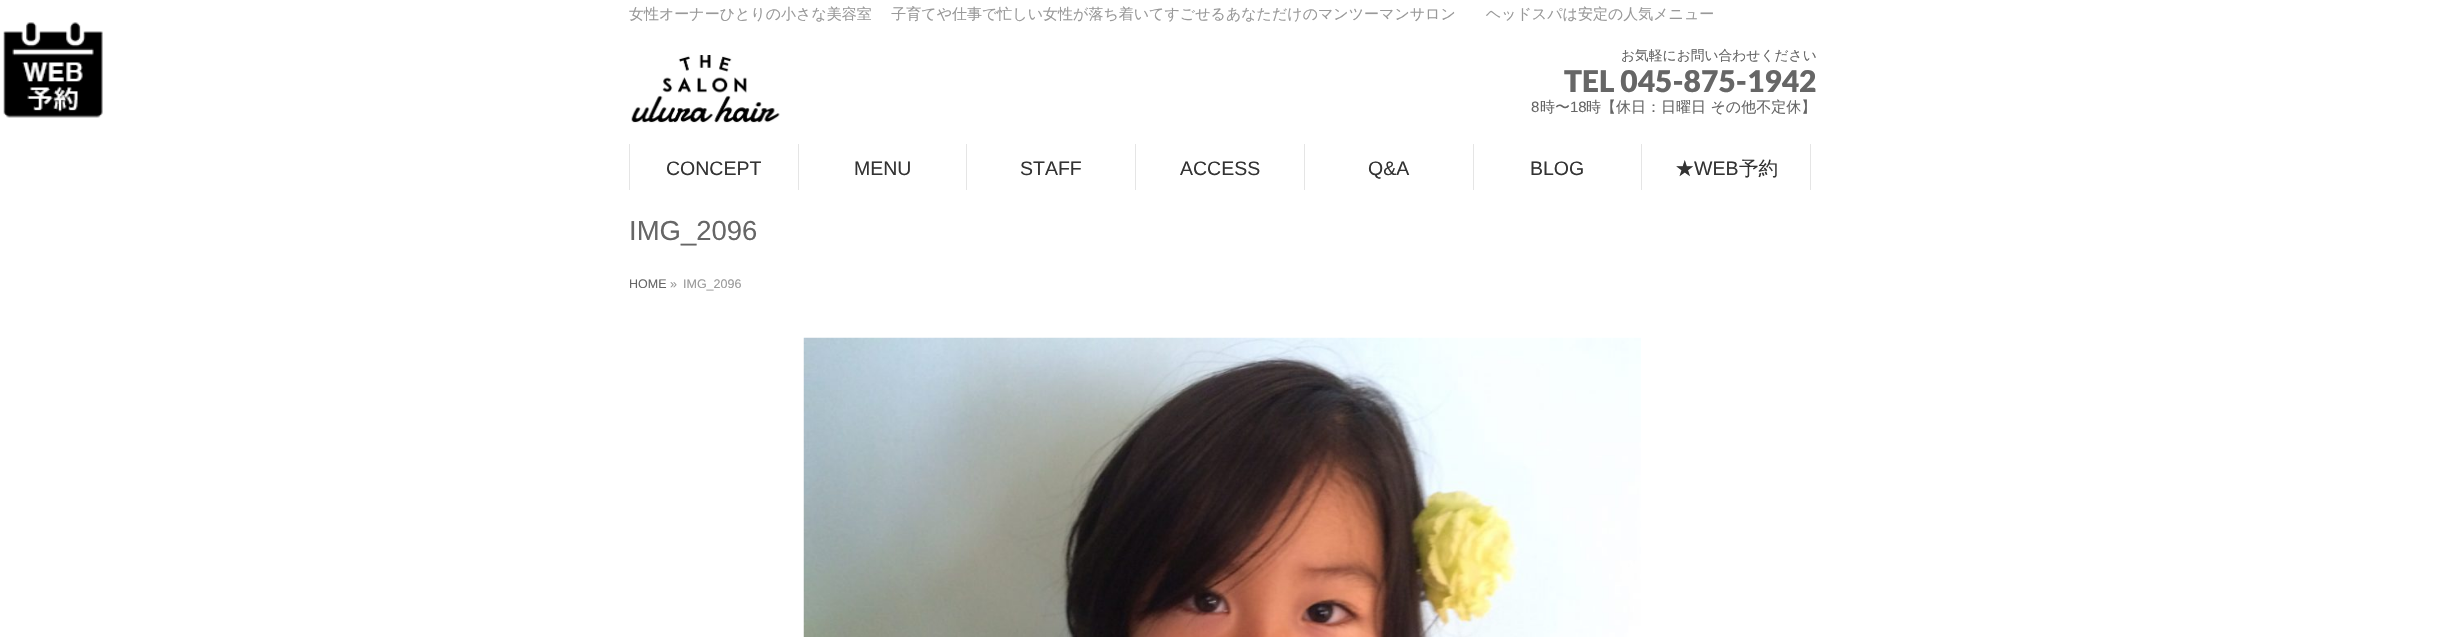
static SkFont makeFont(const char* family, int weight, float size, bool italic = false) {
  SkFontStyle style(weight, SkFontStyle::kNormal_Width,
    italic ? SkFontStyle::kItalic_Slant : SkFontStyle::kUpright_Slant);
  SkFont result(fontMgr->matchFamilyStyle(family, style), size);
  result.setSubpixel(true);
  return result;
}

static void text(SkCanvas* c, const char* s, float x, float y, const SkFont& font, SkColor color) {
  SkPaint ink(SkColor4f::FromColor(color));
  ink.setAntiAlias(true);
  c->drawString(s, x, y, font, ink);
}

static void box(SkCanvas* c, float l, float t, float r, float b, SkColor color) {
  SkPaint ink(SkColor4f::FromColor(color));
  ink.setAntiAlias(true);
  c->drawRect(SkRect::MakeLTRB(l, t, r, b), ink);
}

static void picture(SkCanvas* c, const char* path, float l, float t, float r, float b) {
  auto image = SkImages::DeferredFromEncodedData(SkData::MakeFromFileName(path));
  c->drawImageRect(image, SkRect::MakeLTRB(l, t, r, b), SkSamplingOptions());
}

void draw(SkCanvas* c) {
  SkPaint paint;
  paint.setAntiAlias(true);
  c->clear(0xffffffff);
  SkFont face1 = makeFont("WenQuanYi Zen Hei", 500, 15);
  text(c, "女性オーナーひとりの小さな美容室 　子育てや仕事で忙しい女性が落ち着いてすごせるあなただけのマンツーマンサロン　　ヘッドスパは安定の人気メニュー", 629, 19, face1, 0xff999999);
  picture(c, "img_01.png", 3, 22, 103, 118);
  picture(c, "img_02.png", 631, 55, 780, 123);
  SkFont face2 = makeFont("WenQuanYi Zen Hei", 500, 13.75f);
  text(c, "お気軽にお問い合わせください", 1621, 60, face2, 0xff666666);
  SkFont face3 = makeFont("Lato", 900, 30);
  text(c, "TEL 045-875-1942", 1564, 92, face3, 0xff666666);
  SkFont face4 = makeFont("Liberation Sans", 400, 15);
  text(c, "8", 1531, 112, face4, 0xff666666);
  text(c, "時〜", 1540, 112, face1, 0xff666666);
  text(c, "18", 1570, 112, face4, 0xff666666);
  text(c, "時【休日：日曜日 その他不定休】", 1586, 112, face1, 0xff666666);
  box(c, 629, 144, 630, 190, 0xffe5e5e5);
  box(c, 798, 144, 799, 190, 0xffe5e5e5);
  SkFont face5 = makeFont("Liberation Sans", 400, 19.5f);
  text(c, "CONCEPT", 666, 175, face5, 0xff333333);
  box(c, 966, 144, 967, 190, 0xffe5e5e5);
  text(c, "MENU", 854, 175, face5, 0xff333333);
  box(c, 1135, 144, 1136, 190, 0xffe5e5e5);
  text(c, "STAFF", 1020, 175, face5, 0xff333333);
  box(c, 1304, 144, 1305, 190, 0xffe5e5e5);
  text(c, "ACCESS", 1180, 175, face5, 0xff333333);
  box(c, 1473, 144, 1474, 190, 0xffe5e5e5);
  text(c, "Q&A", 1368, 175, face5, 0xff333333);
  box(c, 1641, 144, 1642, 190, 0xffe5e5e5);
  text(c, "BLOG", 1530, 175, face5, 0xff333333);
  box(c, 1810, 144, 1811, 190, 0xffe5e5e5);
  SkFont face6 = makeFont("WenQuanYi Zen Hei", 500, 19.5f);
  text(c, "★", 1675, 175, face6, 0xff333333);
  text(c, "WEB", 1694, 175, face5, 0xff333333);
  text(c, "予約", 1739, 175, face6, 0xff333333);
  SkFont face7 = makeFont("Liberation Sans", 400, 27.5f);
  text(c, "IMG_2096", 629, 240, face7, 0xff666666);
  SkFont face8 = makeFont("Liberation Sans", 400, 12.5f);
  text(c, "HOME", 629, 288, face8, 0xff666666);
  text(c, "»", 670, 288, face8, 0xff999999);
  text(c, "IMG_2096", 683, 288, face8, 0xff999999);
  picture(c, "img_03.png", 803, 337, 1641, 637);
}
